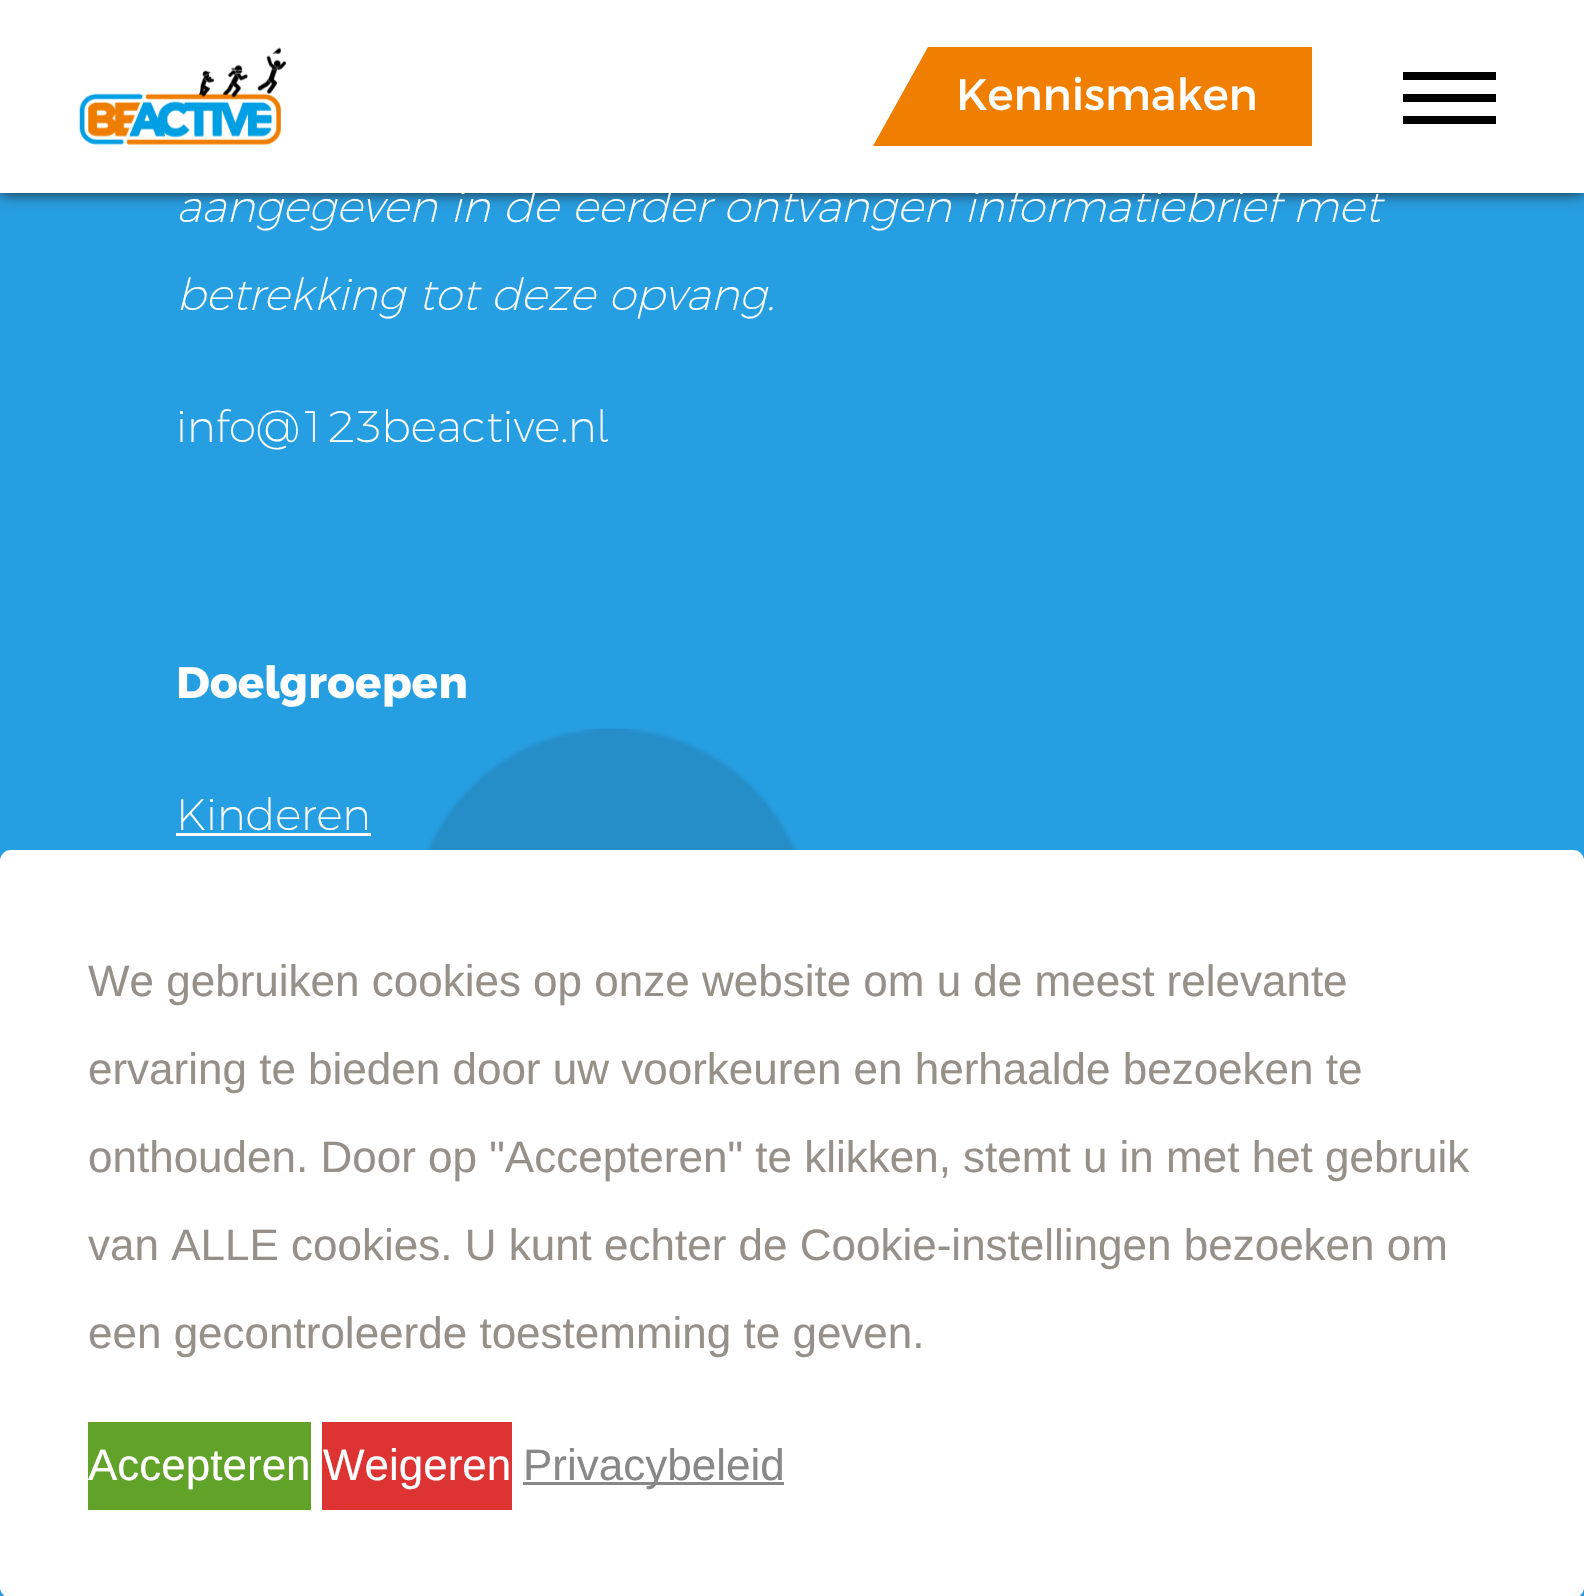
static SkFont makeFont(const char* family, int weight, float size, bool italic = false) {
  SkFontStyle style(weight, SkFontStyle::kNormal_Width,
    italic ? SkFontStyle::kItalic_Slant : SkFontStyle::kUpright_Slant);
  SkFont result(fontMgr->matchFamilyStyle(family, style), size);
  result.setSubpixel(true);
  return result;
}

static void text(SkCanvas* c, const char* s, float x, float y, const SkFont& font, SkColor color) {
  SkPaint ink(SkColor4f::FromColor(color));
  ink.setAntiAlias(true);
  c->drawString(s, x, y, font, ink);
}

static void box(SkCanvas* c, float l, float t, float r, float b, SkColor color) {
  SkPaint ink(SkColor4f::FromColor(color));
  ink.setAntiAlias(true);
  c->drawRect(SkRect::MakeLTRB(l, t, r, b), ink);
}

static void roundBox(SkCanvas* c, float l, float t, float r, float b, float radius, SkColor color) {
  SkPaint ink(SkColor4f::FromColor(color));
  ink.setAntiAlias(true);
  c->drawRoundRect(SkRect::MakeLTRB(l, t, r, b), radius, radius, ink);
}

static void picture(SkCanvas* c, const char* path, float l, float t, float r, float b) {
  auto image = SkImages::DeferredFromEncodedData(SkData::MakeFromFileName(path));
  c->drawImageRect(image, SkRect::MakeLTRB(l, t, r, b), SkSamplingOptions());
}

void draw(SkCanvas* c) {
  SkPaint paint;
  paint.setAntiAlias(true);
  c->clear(0xffffffff);
  paint.setColor(0xff269ee2);
  c->drawPath(SkPathBuilder().moveTo(0, -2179).lineTo(1584, -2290).lineTo(1584, 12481).lineTo(0, 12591).close().detach(), paint);
  paint.setColor(0xff232323);
  paint.setMaskFilter(SkMaskFilter::MakeBlur(kNormal_SkBlurStyle, 7));
  c->drawRect(SkRect::MakeLTRB(0, 0, 1584, 193), paint);
  paint.setMaskFilter(nullptr);
  box(c, 0, 0, 1584, 193, 0xffffffff);
  picture(c, "img_01.png", 79, 47, 286, 145);
  paint.setColor(0xfff07e00);
  c->drawPath(SkPathBuilder().moveTo(1312, 146).lineTo(873, 146).lineTo(928, 47).lineTo(1312, 47).close().detach(), paint);
  SkFont face1 = makeFont("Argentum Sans", 400, 44);
  text(c, "Kennismaken", 956, 110, face1, 0xffffffff);
  box(c, 1403, 72, 1496, 80, 0xff000000);
  box(c, 1403, 94, 1496, 102, 0xff000000);
  box(c, 1403, 116, 1496, 124, 0xff000000);
  SkFont face2 = makeFont("Argentum Sans", 200, 44, true);
  text(c, "aangegeven in de eerder ontvangen informatiebrief met", 176, 222, face2, 0xffffffff);
  text(c, "betrekking tot deze opvang.", 176, 310, face2, 0xffffffff);
  SkFont face3 = makeFont("Argentum Sans", 200, 44);
  text(c, "info@123beactive.nl", 176, 442, face3, 0xffffffff);
  SkFont face4 = makeFont("Argentum Sans", 700, 44);
  text(c, "Doelgroepen", 176, 698, face4, 0xffffffff);
  text(c, "Kinderen", 176, 830, face3, 0xffffffff);
  box(c, 176, 833, 371, 836, 0xffffffff);
  picture(c, "img_02.png", 426, 728, 797, 850);
  roundBox(c, 0, 850, 1584, 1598, 11, 0xffffffff);
  SkFont face5 = makeFont("Liberation Sans", 400, 44);
  text(c, "We gebruiken cookies op onze website om u de meest relevante", 88, 996, face5, 0xff96908b);
  text(c, "ervaring te bieden door uw voorkeuren en herhaalde bezoeken te", 88, 1084, face5, 0xff96908b);
  text(c, "onthouden. Door op \"Accepteren\" te klikken, stemt u in met het gebruik", 88, 1172, face5, 0xff96908b);
  text(c, "van ALLE cookies. U kunt echter de Cookie-instellingen bezoeken om", 88, 1260, face5, 0xff96908b);
  text(c, "een gecontroleerde toestemming te geven.", 88, 1348, face5, 0xff96908b);
  box(c, 88, 1422, 311, 1510, 0xff61a229);
  text(c, "Accepteren", 88, 1480, face5, 0xffffffff);
  box(c, 322, 1422, 512, 1510, 0xffdd3333);
  text(c, "Weigeren", 323, 1480, face5, 0xffffffff);
  box(c, 523, 1482, 784, 1485, 0xff898888);
  text(c, "Privacybeleid", 523, 1480, face5, 0xff898888);
}
